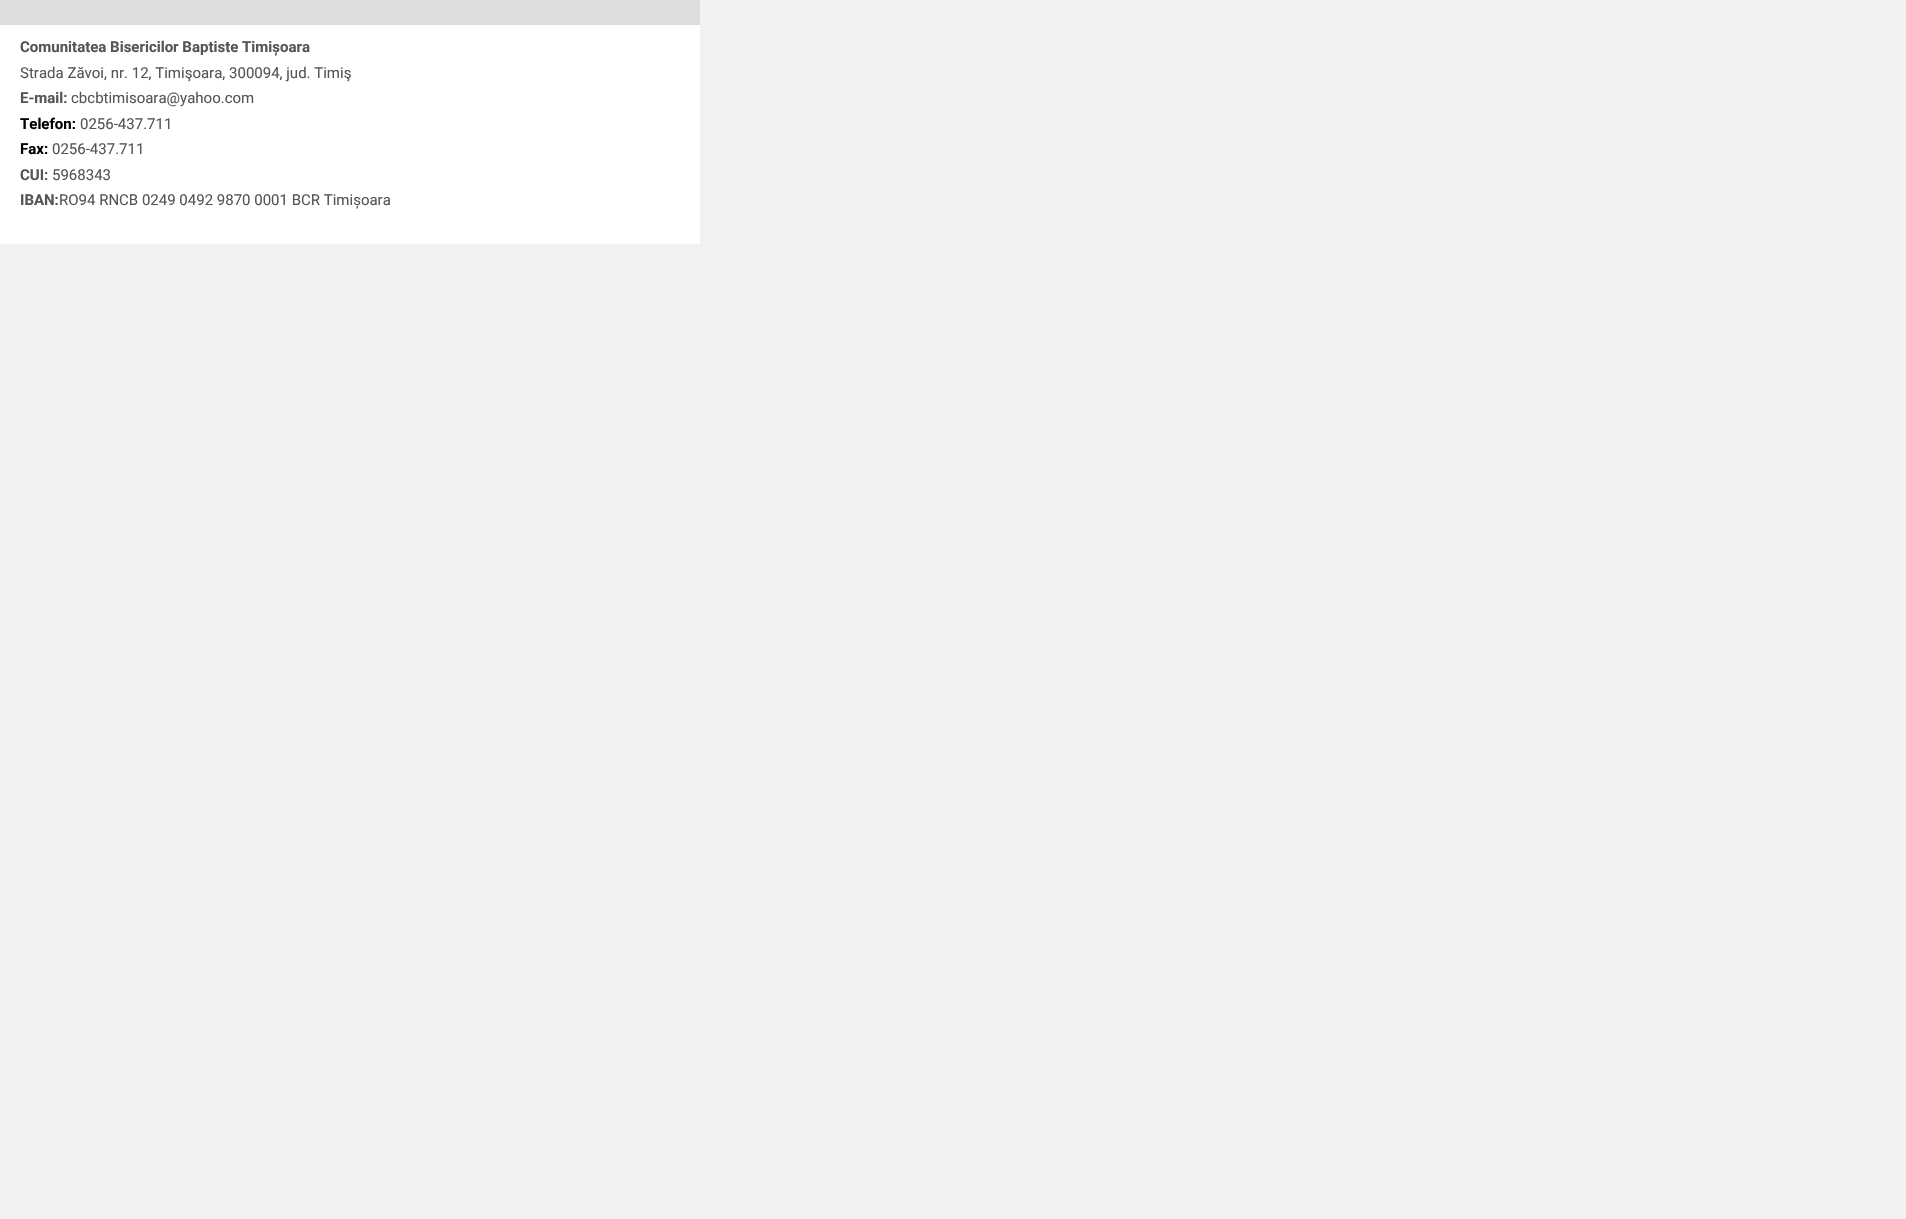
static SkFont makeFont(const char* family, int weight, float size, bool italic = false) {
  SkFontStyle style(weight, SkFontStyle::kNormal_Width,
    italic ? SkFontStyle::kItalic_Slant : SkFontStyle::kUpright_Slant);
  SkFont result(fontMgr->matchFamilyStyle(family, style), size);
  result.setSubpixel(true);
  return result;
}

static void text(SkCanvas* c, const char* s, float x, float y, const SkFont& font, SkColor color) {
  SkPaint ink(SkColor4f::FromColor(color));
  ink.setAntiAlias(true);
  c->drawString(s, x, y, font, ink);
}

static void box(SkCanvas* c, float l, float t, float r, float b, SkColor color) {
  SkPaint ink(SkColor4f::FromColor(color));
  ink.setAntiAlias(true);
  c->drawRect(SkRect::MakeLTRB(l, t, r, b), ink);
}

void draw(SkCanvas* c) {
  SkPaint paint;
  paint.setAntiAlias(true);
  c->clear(0xfff1f1f1);
  box(c, 0, 0, 700, 25, 0xffdddddd);
  box(c, 0, 25, 700, 244, 0xffffffff);
  SkFont face1 = makeFont("Roboto", 700, 15);
  text(c, "Comunitatea Bisericilor Baptiste Timișoara", 20, 52, face1, 0xff555555);
  SkFont face2 = makeFont("Roboto", 400, 15);
  text(c, "Strada Zăvoi, nr. 12, Timişoara, 300094, jud. Timiş", 20, 78, face2, 0xff555555);
  text(c, "E-mail:", 20, 103, face1, 0xff555555);
  text(c, "cbcbtimisoara@yahoo.com", 71, 103, face2, 0xff555555);
  text(c, "Telefon:", 20, 129, face1, 0xff000000);
  text(c, "0256-437.711", 80, 129, face2, 0xff555555);
  text(c, "Fax:", 20, 154, face1, 0xff000000);
  text(c, "0256-437.711", 52, 154, face2, 0xff555555);
  text(c, "CUI:", 20, 180, face1, 0xff555555);
  text(c, "5968343", 52, 180, face2, 0xff555555);
  text(c, "IBAN:", 20, 205, face1, 0xff555555);
  text(c, "RO94 RNCB 0249 0492 9870 0001 BCR Timișoara", 59, 205, face2, 0xff555555);
}
